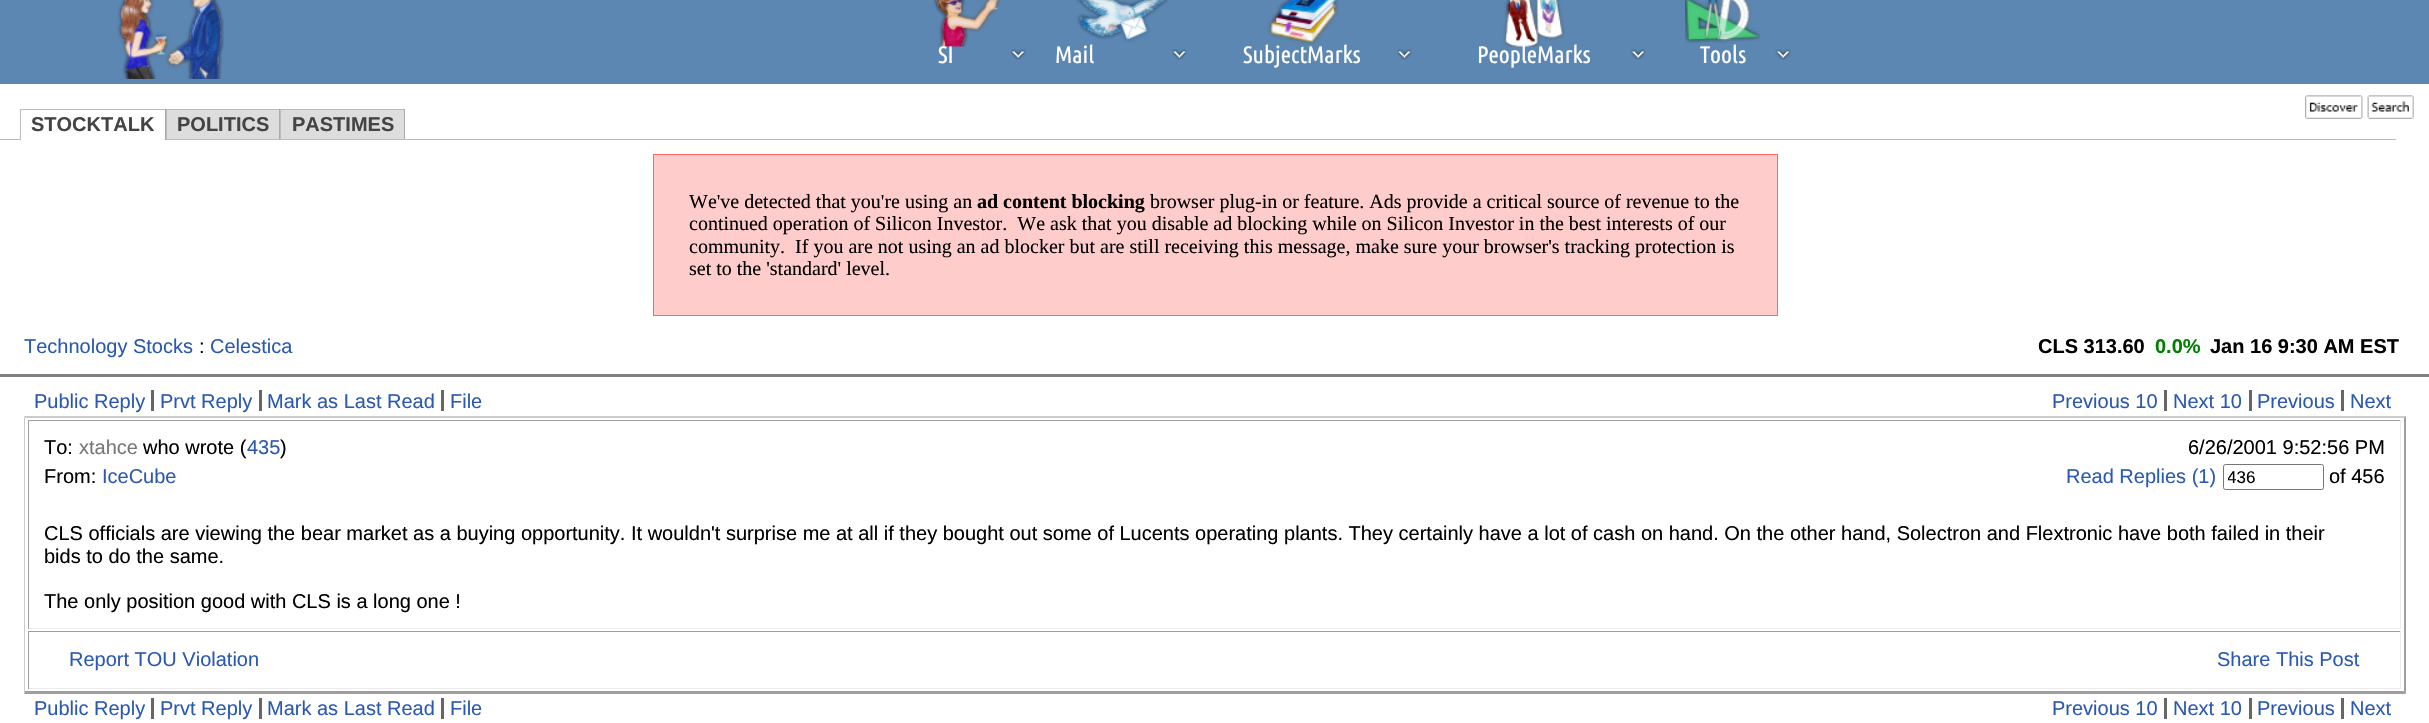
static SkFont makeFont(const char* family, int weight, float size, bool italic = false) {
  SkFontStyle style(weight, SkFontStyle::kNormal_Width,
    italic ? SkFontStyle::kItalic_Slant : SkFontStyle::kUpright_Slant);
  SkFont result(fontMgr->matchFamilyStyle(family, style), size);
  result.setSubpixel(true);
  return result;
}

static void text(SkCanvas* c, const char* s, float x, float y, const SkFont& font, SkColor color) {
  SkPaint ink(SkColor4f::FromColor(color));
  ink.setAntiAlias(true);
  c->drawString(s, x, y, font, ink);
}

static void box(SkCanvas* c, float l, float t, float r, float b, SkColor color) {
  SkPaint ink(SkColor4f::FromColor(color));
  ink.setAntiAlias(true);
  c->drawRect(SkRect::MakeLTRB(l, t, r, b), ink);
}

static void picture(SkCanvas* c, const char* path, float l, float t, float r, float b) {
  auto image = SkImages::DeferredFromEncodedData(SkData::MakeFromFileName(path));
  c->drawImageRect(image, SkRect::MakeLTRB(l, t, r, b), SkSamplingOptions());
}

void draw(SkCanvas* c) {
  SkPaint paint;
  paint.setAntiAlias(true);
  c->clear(0xffffffff);
  box(c, 0, 0, 2429, 84, 0xff5c87b2);
  picture(c, "img_01.png", 117, 0, 224, 79);
  picture(c, "img_02.png", 933, 0, 1001, 47);
  picture(c, "img_03.png", 1010, 49, 1026, 60);
  SkFont face1 = makeFont("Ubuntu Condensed", 400, 23.75f);
  text(c, "SI", 938, 63, face1, 0xffffffff);
  picture(c, "img_04.png", 1076, 0, 1169, 43);
  picture(c, "img_05.png", 1172, 49, 1187, 60);
  text(c, "Mail", 1055, 63, face1, 0xffffffff);
  picture(c, "img_06.png", 1267, 0, 1339, 45);
  picture(c, "img_07.png", 1397, 49, 1412, 60);
  text(c, "SubjectMarks", 1243, 63, face1, 0xffffffff);
  picture(c, "img_08.png", 1502, 0, 1565, 47);
  picture(c, "img_09.png", 1630, 49, 1646, 60);
  text(c, "PeopleMarks", 1477, 63, face1, 0xffffffff);
  picture(c, "img_10.png", 1685, 0, 1760, 44);
  picture(c, "img_09.png", 1775, 49, 1791, 60);
  text(c, "Tools", 1700, 63, face1, 0xffffffff);
  picture(c, "img_11.png", 2305, 95, 2363, 119);
  picture(c, "img_12.png", 2367, 95, 2414, 119);
  box(c, 20, 109, 405, 110, 0xffbbbbbb);
  box(c, 279, 109, 280, 140, 0xffaaaaaa);
  box(c, 166, 109, 167, 140, 0xffbbbbbb);
  box(c, 404, 109, 405, 140, 0xffaaaaaa);
  box(c, 280, 109, 281, 140, 0xffbbbbbb);
  box(c, 0, 139, 2396, 140, 0xffbbbbbb);
  box(c, 21, 139, 165, 140, 0xffffffff);
  box(c, 165, 109, 166, 140, 0xffaaaaaa);
  box(c, 20, 109, 21, 140, 0xffbbbbbb);
  SkFont face2 = makeFont("Liberation Sans", 700, 20);
  text(c, "STOCKTALK", 31, 131, face2, 0xff444444);
  box(c, 167, 110, 279, 139, 0xffdddddd);
  text(c, "POLITICS", 177, 131, face2, 0xff444444);
  box(c, 281, 110, 404, 139, 0xffdddddd);
  text(c, "PASTIMES", 292, 131, face2, 0xff444444);
  paint.setColor(0xffffcccc);
  c->drawRect(SkRect::MakeLTRB(653.5f, 154.5f, 1777.5f, 315.5f), paint);
  paint.setStyle(SkPaint::kStroke_Style);
  paint.setStrokeWidth(1);
  paint.setColor(0xffff6666);
  c->drawRect(SkRect::MakeLTRB(653.5f, 154.5f, 1777.5f, 315.5f), paint);
  SkFont face3 = makeFont("Liberation Serif", 400, 20);
  text(c, "We've detected that you're using an", 689, 208, face3, 0xff000000);
  SkFont face4 = makeFont("Liberation Serif", 700, 20);
  text(c, "ad content blocking", 977, 208, face4, 0xff000000);
  text(c, "browser plug-in or feature. Ads provide a critical source of revenue to the", 1150, 208, face3, 0xff000000);
  text(c, "continued operation of Silicon Investor.  We ask that you disable ad blocking while on Silicon Investor in the best interests of our", 689, 230, face3, 0xff000000);
  text(c, "community.  If you are not using an ad blocker but are still receiving this message, make sure your browser's tracking protection is", 689, 253, face3, 0xff000000);
  text(c, "set to the 'standard' level.", 689, 275, face3, 0xff000000);
  SkFont face5 = makeFont("Liberation Sans", 400, 20);
  text(c, "Technology Stocks", 24, 353, face5, 0xff2b59b2);
  text(c, ":", 199, 353, face5, 0xff000000);
  text(c, "Celestica", 210, 353, face5, 0xff2b59b2);
  text(c, "CLS 313.60", 2038, 353, face2, 0xff000000);
  text(c, "0.0%", 2155, 353, face2, 0xff008000);
  text(c, "Jan 16 9:30 AM EST", 2210, 353, face2, 0xff000000);
  box(c, 0, 374, 2429, 377, 0xff808080);
  text(c, "Public Reply", 34, 408, face5, 0xff2b59b2);
  text(c, "Prvt Reply", 160, 408, face5, 0xff2b59b2);
  box(c, 151, 390, 154, 411, 0xff666666);
  text(c, "Mark as Last Read", 267, 408, face5, 0xff2b59b2);
  box(c, 259, 390, 262, 411, 0xff666666);
  text(c, "File", 450, 408, face5, 0xff2b59b2);
  box(c, 441, 390, 444, 411, 0xff666666);
  text(c, "Previous 10", 2052, 408, face5, 0xff2b59b2);
  box(c, 2164, 390, 2167, 411, 0xff666666);
  text(c, "Next 10", 2173, 408, face5, 0xff2b59b2);
  box(c, 2249, 390, 2252, 411, 0xff666666);
  text(c, "Previous", 2257, 408, face5, 0xff2b59b2);
  box(c, 2341, 390, 2344, 411, 0xff666666);
  text(c, "Next", 2350, 408, face5, 0xff2b59b2);
  paint.setStyle(SkPaint::kFill_Style);
  paint.setColor(0xffcbcbcb);
  c->drawPath(SkPathBuilder().moveTo(24, 416).lineTo(2406, 416).lineTo(2404, 418).lineTo(25, 418).close().detach(), paint);
  paint.setColor(0xff9f9f9f);
  c->drawPath(SkPathBuilder().moveTo(2406, 416).lineTo(2406, 694).lineTo(2404, 691).lineTo(2404, 418).close().detach(), paint);
  c->drawPath(SkPathBuilder().moveTo(2406, 694).lineTo(24, 694).lineTo(25, 691).lineTo(2404, 691).close().detach(), paint);
  paint.setColor(0xffcbcbcb);
  c->drawPath(SkPathBuilder().moveTo(24, 694).lineTo(24, 416).lineTo(25, 418).lineTo(25, 691).close().detach(), paint);
  box(c, 28, 420, 2401, 421, 0xff9f9f9f);
  box(c, 2400, 420, 2401, 629, 0xffebebeb);
  box(c, 28, 628, 2401, 629, 0xffebebeb);
  box(c, 28, 420, 29, 629, 0xff9f9f9f);
  text(c, "To:", 44, 454, face5, 0xff000000);
  text(c, "xtahce", 79, 454, face5, 0xff777777);
  text(c, "who wrote (", 143, 454, face5, 0xff000000);
  text(c, "435", 247, 454, face5, 0xff2b59b2);
  text(c, ")", 280, 454, face5, 0xff000000);
  text(c, "6/26/2001 9:52:56 PM", 2188, 454, face5, 0xff000000);
  text(c, "From:", 44, 483, face5, 0xff000000);
  text(c, "IceCube", 102, 483, face5, 0xff2b59b2);
  text(c, "Read Replies (1)", 2066, 483, face5, 0xff2b59b2);
  paint.setStyle(SkPaint::kStroke_Style);
  paint.setColor(0xff767676);
  c->drawRoundRect(SkRect::MakeLTRB(2223.5f, 464.5f, 2323.5f, 489.5f), 2, 2, paint);
  c->save();
  c->clipRect(SkRect::MakeLTRB(2228, 468, 2319, 486));
  SkFont face6 = makeFont("Liberation Sans", 400, 17);
  text(c, "436", 2227, 483, face6, 0xff000000);
  c->restore();
  text(c, "of 456", 2329, 483, face5, 0xff000000);
  text(c, "CLS officials are viewing the bear market as a buying opportunity. It wouldn't surprise me at all if they bought out some of Lucents operating plants. They certainly have a lot of cash on hand. On the other hand, Solectron and Flextronic have both failed in their", 44, 540, face5, 0xff000000);
  text(c, "bids to do the same.", 44, 563, face5, 0xff000000);
  text(c, "The only position good with CLS is a long one !", 44, 608, face5, 0xff000000);
  box(c, 28, 631, 2401, 632, 0xff9f9f9f);
  box(c, 2400, 631, 2401, 689, 0xffebebeb);
  box(c, 28, 688, 2401, 689, 0xffebebeb);
  box(c, 28, 631, 29, 689, 0xff9f9f9f);
  text(c, "Report TOU Violation", 69, 666, face5, 0xff2b59b2);
  text(c, "Share This Post", 2217, 666, face5, 0xff2b59b2);
  text(c, "Public Reply", 34, 715, face5, 0xff2b59b2);
  text(c, "Prvt Reply", 160, 715, face5, 0xff2b59b2);
  box(c, 151, 698, 154, 719, 0xff666666);
  text(c, "Mark as Last Read", 267, 715, face5, 0xff2b59b2);
  box(c, 259, 698, 262, 719, 0xff666666);
  text(c, "File", 450, 715, face5, 0xff2b59b2);
  box(c, 441, 698, 444, 719, 0xff666666);
  text(c, "Previous 10", 2052, 715, face5, 0xff2b59b2);
  box(c, 2164, 698, 2167, 719, 0xff666666);
  text(c, "Next 10", 2173, 715, face5, 0xff2b59b2);
  box(c, 2249, 698, 2252, 719, 0xff666666);
  text(c, "Previous", 2257, 715, face5, 0xff2b59b2);
  box(c, 2341, 698, 2344, 719, 0xff666666);
  text(c, "Next", 2350, 715, face5, 0xff2b59b2);
}
